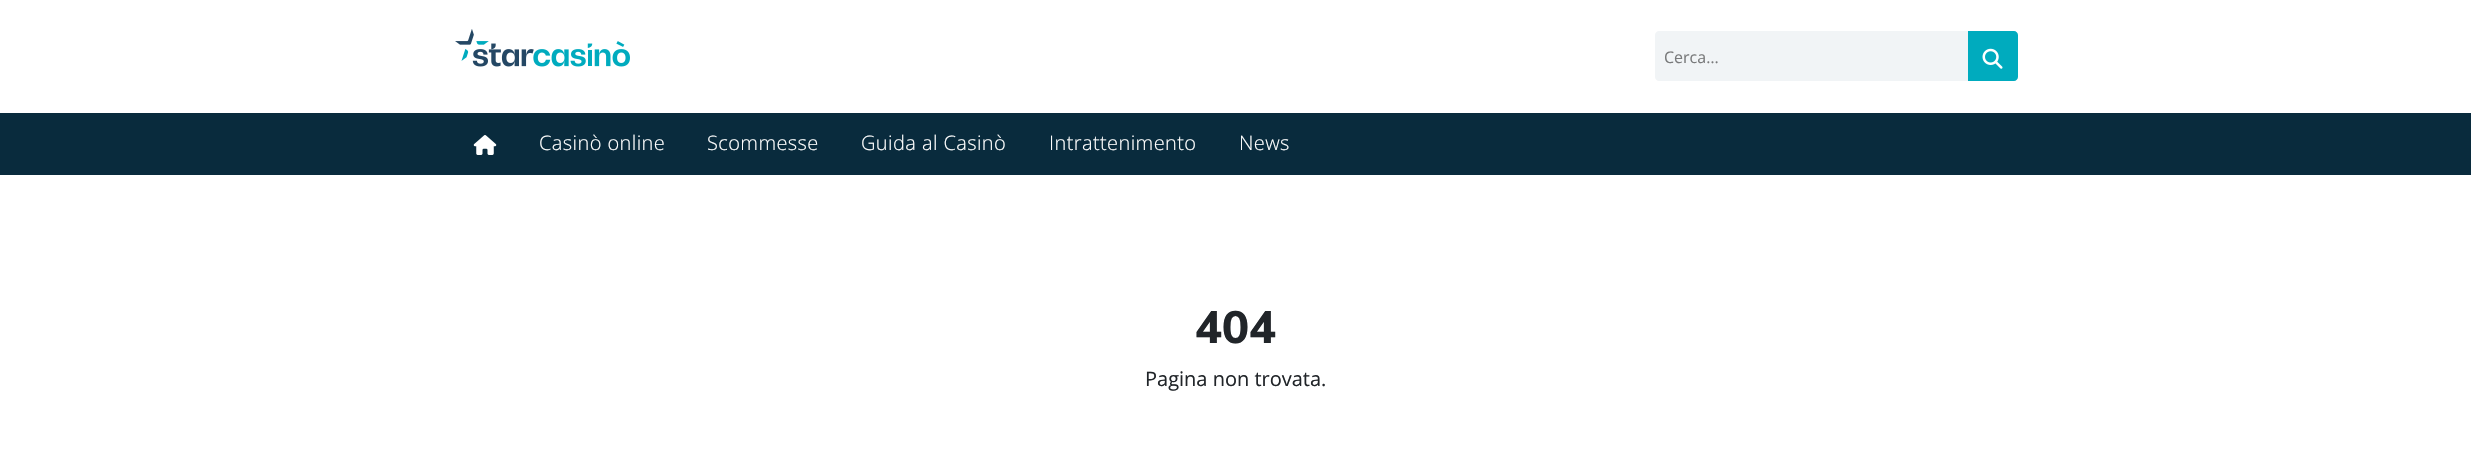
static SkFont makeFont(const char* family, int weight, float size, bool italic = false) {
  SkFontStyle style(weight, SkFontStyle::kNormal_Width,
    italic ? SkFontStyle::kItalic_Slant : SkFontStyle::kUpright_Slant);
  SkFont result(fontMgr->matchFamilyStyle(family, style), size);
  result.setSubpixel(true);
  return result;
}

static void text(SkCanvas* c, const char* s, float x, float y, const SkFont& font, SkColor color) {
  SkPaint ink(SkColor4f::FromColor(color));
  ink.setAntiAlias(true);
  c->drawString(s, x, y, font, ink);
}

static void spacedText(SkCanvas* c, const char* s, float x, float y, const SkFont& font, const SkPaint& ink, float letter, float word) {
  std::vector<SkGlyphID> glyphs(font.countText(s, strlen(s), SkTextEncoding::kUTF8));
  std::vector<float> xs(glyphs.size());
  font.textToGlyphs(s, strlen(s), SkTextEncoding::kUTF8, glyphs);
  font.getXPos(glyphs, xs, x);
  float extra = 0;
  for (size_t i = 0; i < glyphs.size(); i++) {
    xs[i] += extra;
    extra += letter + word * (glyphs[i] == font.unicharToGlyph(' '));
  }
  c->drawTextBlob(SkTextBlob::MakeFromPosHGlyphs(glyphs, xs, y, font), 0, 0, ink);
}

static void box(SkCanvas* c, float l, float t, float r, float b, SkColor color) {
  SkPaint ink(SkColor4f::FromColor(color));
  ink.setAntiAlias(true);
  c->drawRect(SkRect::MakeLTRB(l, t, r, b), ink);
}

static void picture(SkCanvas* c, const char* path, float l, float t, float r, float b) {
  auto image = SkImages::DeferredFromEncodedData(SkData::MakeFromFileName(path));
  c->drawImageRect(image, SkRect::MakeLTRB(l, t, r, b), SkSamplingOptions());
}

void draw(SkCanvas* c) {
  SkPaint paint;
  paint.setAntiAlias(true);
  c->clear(0xffffffff);
  picture(c, "img_01.png", 455, 29, 630, 67);
  paint.setColor(0xfff1f4f6);
  c->drawPath(SkPathBuilder().moveTo(1659, 31).lineTo(1969, 31).lineTo(1969, 81).lineTo(1659, 81).cubicTo(1657, 81, 1655, 79, 1655, 77).lineTo(1655, 35).cubicTo(1655, 33, 1657, 31, 1659, 31).close().detach(), paint);
  SkFont face1 = makeFont("Open Sans", 400, 16);
  text(c, "Cerca…", 1664, 63, face1, 0xff797a7b);
  paint.setColor(0xff00abbe);
  c->drawPath(SkPathBuilder().moveTo(1968, 31).lineTo(2014, 31).cubicTo(2016, 31, 2018, 33, 2018, 35).lineTo(2018, 77).cubicTo(2018, 79, 2016, 81, 2014, 81).lineTo(1968, 81).close().detach(), paint);
  picture(c, "img_02.png", 1982, 48, 2003, 69);
  box(c, 0, 113, 2471, 175, 0xff092b3d);
  picture(c, "img_03.png", 473, 135, 497, 155);
  SkFont face2 = makeFont("Open Sans", 300, 20);
  paint.setColor(0xffffffff);
  spacedText(c, "Casinò online", 539, 150, face2, paint, 0.4f, 0);
  spacedText(c, "Scommesse", 707, 150, face2, paint, 0.4f, 0);
  spacedText(c, "Guida al Casinò", 861, 150, face2, paint, 0.4f, 0);
  spacedText(c, "Intrattenimento", 1049, 150, face2, paint, 0.4f, 0);
  spacedText(c, "News", 1239, 150, face2, paint, 0.4f, 0);
  SkFont face3 = makeFont("Muli", 800, 45);
  text(c, "404", 1195, 343, face3, 0xff212529);
  SkFont face4 = makeFont("Open Sans", 400, 20);
  text(c, "Pagina non trovata.", 1145, 386, face4, 0xff212529);
}
